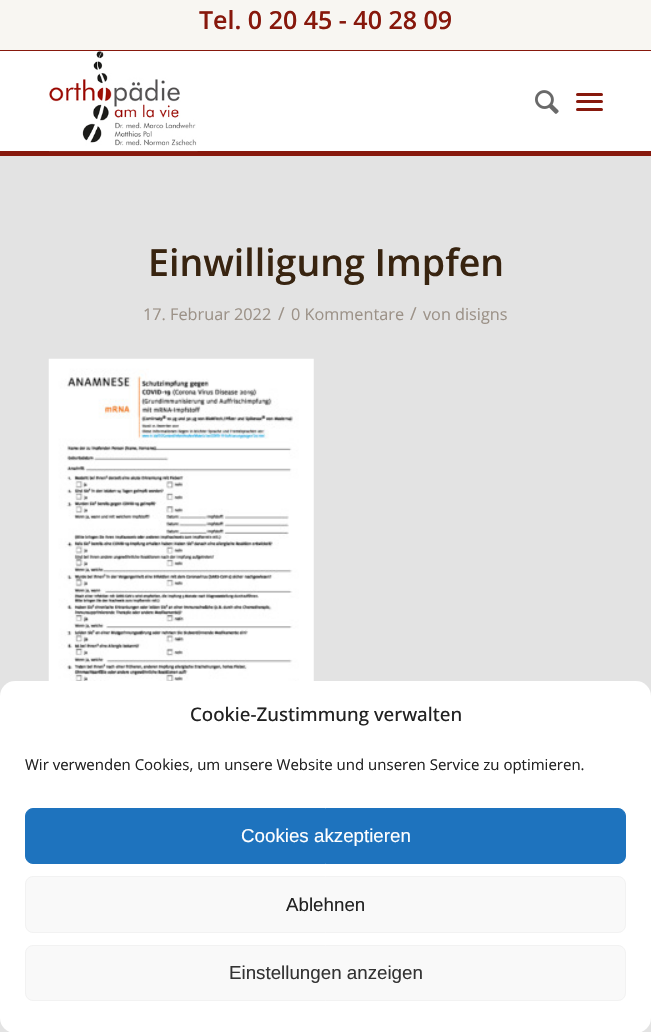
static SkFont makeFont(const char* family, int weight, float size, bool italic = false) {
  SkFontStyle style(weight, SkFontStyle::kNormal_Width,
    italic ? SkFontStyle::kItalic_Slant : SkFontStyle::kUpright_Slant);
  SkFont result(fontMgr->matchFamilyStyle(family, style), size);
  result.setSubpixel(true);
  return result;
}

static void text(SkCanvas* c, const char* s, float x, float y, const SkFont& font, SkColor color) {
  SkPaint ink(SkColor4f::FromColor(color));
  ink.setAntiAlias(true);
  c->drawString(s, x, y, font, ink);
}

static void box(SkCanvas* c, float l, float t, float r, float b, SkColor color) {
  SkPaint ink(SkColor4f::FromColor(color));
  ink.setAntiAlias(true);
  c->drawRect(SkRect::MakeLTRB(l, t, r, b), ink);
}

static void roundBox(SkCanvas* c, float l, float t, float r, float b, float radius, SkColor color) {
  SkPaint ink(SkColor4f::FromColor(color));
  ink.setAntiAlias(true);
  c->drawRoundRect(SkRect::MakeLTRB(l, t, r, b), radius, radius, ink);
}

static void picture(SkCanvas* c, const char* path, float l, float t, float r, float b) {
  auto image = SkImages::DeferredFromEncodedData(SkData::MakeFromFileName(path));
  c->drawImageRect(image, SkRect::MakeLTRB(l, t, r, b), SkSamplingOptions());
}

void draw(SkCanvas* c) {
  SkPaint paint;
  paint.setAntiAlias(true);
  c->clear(0xffe3e3e3);
  box(c, 0, 0, 651, 50, 0xfff8f6f2);
  box(c, 0, 50, 651, 51, 0xff87180c);
  SkFont face1 = makeFont("Open Sans", 600, 25);
  text(c, "Tel. 0 20 45 - 40 28 09", 199, 29, face1, 0xff87180c);
  box(c, 0, 51, 651, 151, 0xffffffff);
  box(c, 0, 151, 651, 156, 0xff87180c);
  picture(c, "img_01.png", 49, 51, 198, 152);
  picture(c, "img_02.png", 535, 90, 559, 114);
  roundBox(c, 576, 100, 603, 103, 1.5f, 0xff87180c);
  roundBox(c, 576, 93, 603, 96, 1.5f, 0xff87180c);
  roundBox(c, 576, 108, 603, 111, 1.5f, 0xff87180c);
  SkFont face2 = makeFont("Open Sans", 600, 37.5f);
  text(c, "Einwilligung Impfen", 148, 276, face2, 0xff382410);
  SkFont face3 = makeFont("Open Sans", 400, 16.25f);
  text(c, "17. Februar 2022", 143, 320, face3, 0xff9c9288);
  SkFont face4 = makeFont("Open Sans", 400, 18);
  text(c, "/", 278, 320, face4, 0xff9c9288);
  text(c, "0 Kommentare", 291, 320, face3, 0xff9c9288);
  text(c, "/", 410, 320, face4, 0xff9c9288);
  text(c, "von disigns", 423, 320, face3, 0xff9c9288);
  picture(c, "img_03.png", 48, 358, 314, 681);
  roundBox(c, 0, 681, 651, 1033, 15, 0xffffffff);
  SkFont face5 = makeFont("Open Sans", 500, 18.75f);
  text(c, "Cookie-Zustimmung verwalten", 190, 721, face5, 0xff222222);
  SkFont face6 = makeFont("Open Sans", 400, 15);
  text(c, "Wir verwenden Cookies, um unsere Website und unseren Service zu optimieren.", 25, 770, face6, 0xff222222);
  paint.setColor(0xff1e73be);
  c->drawRoundRect(SkRect::MakeLTRB(25.5f, 808.5f, 625.5f, 863.5f), 7.5f, 7.5f, paint);
  paint.setStyle(SkPaint::kStroke_Style);
  paint.setStrokeWidth(1);
  c->drawRoundRect(SkRect::MakeLTRB(25.5f, 808.5f, 625.5f, 863.5f), 7.5f, 7.5f, paint);
  SkFont face7 = makeFont("Liberation Sans", 400, 18.75f);
  text(c, "Cookies akzeptieren", 241, 842, face7, 0xffffffff);
  paint.setStyle(SkPaint::kFill_Style);
  paint.setColor(0xfff9f9f9);
  c->drawRoundRect(SkRect::MakeLTRB(25.5f, 876.5f, 625.5f, 932.5f), 7.5f, 7.5f, paint);
  paint.setStyle(SkPaint::kStroke_Style);
  paint.setColor(0xfff2f2f2);
  c->drawRoundRect(SkRect::MakeLTRB(25.5f, 876.5f, 625.5f, 932.5f), 7.5f, 7.5f, paint);
  text(c, "Ablehnen", 286, 911, face7, 0xff222222);
  paint.setStyle(SkPaint::kFill_Style);
  paint.setColor(0xfff9f9f9);
  c->drawRoundRect(SkRect::MakeLTRB(25.5f, 945.5f, 625.5f, 1000.5f), 7.5f, 7.5f, paint);
  paint.setStyle(SkPaint::kStroke_Style);
  paint.setColor(0xfff2f2f2);
  c->drawRoundRect(SkRect::MakeLTRB(25.5f, 945.5f, 625.5f, 1000.5f), 7.5f, 7.5f, paint);
  text(c, "Einstellungen anzeigen", 229, 979, face7, 0xff333333);
}
